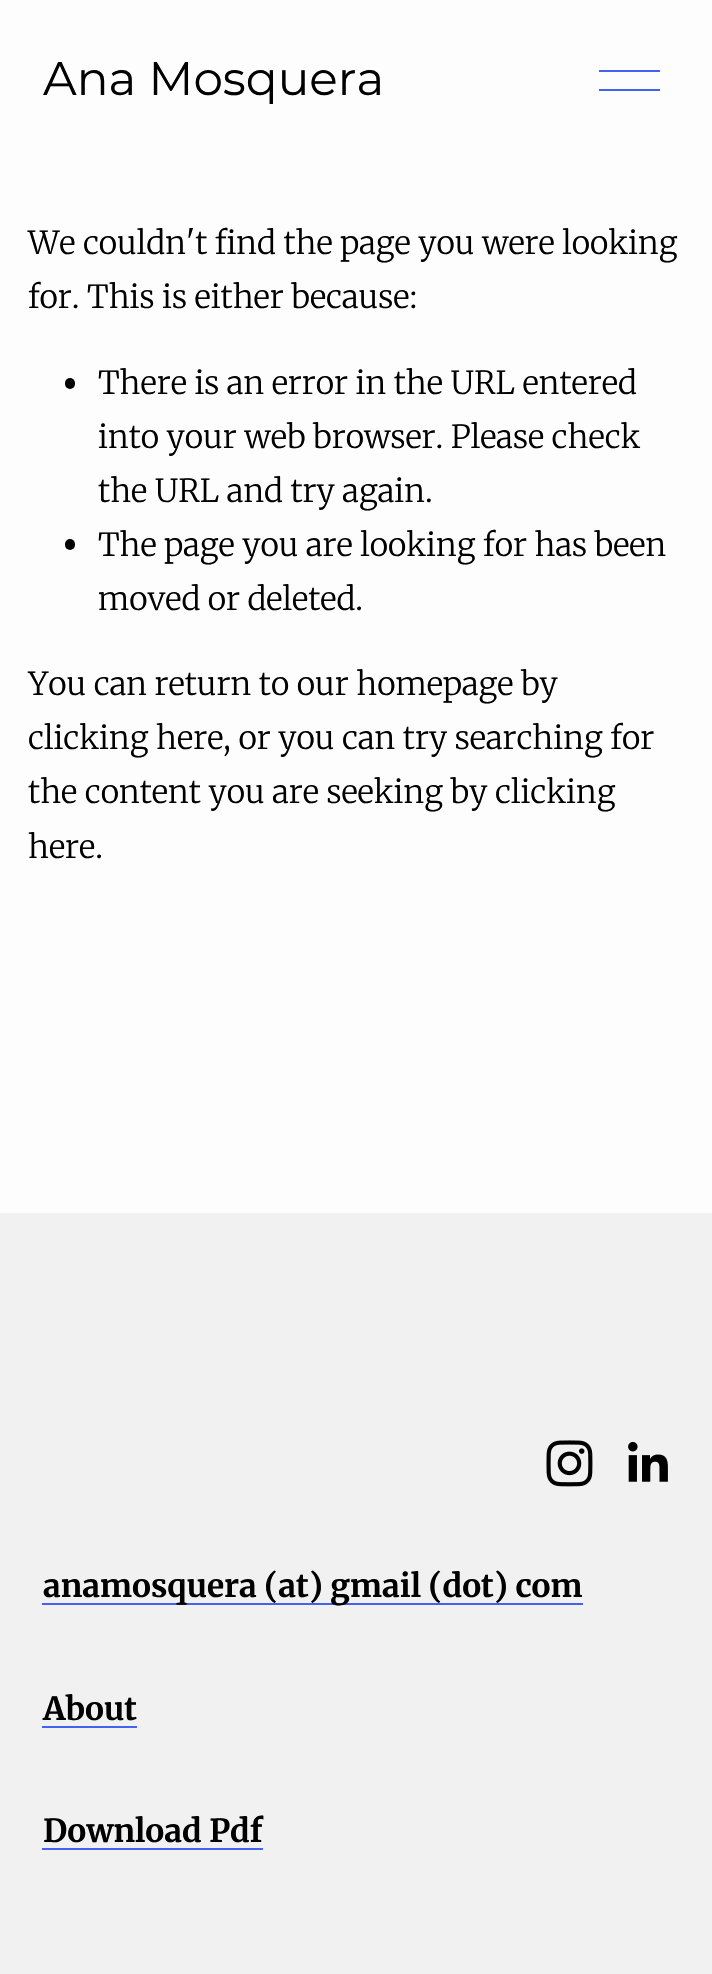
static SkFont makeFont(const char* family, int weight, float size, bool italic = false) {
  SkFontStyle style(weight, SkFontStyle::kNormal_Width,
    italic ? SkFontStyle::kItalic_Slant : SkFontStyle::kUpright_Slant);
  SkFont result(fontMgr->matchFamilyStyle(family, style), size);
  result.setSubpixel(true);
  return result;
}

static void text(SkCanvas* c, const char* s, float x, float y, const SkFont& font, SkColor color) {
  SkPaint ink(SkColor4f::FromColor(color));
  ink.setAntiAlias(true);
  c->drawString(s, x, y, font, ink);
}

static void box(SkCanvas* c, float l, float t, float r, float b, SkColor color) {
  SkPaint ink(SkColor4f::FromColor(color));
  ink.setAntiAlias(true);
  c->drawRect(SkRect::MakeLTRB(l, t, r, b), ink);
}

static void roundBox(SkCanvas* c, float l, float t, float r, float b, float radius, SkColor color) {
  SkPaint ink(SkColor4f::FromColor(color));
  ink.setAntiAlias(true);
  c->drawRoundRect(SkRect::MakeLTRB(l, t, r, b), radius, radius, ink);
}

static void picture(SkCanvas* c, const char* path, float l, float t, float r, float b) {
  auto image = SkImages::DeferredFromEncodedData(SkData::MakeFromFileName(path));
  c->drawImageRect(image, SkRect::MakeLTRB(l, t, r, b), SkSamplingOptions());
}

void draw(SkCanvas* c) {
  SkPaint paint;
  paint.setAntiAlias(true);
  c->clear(0xfffdfdfd);
  SkFont face1 = makeFont("Montserrat", 400, 47);
  text(c, "Ana Mosquera", 43, 95, face1, 0xff000000);
  box(c, 599, 70, 660, 72, 0xff4462f0);
  box(c, 599, 89, 660, 91, 0xff4462f0);
  SkFont face2 = makeFont("Merriweather", 300, 31.75f);
  text(c, "We couldn't find the page you were looking", 28, 254, face2, 0xff000000);
  text(c, "for. This is either because:", 28, 308, face2, 0xff000000);
  roundBox(c, 65, 378, 75, 389, 5, 0xff000000);
  text(c, "There is an error in the URL entered", 98, 394, face2, 0xff000000);
  text(c, "into your web browser. Please check", 98, 448, face2, 0xff000000);
  text(c, "the URL and try again.", 98, 502, face2, 0xff000000);
  roundBox(c, 65, 539, 75, 550, 5, 0xff000000);
  text(c, "The page you are looking for has been", 98, 556, face2, 0xff000000);
  text(c, "moved or deleted.", 98, 610, face2, 0xff000000);
  text(c, "You can return to our homepage by", 28, 695, face2, 0xff000000);
  text(c, "clicking here, or you can try searching for", 28, 749, face2, 0xff000000);
  text(c, "the content you are seeking by clicking", 28, 803, face2, 0xff000000);
  text(c, "here.", 28, 858, face2, 0xff000000);
  box(c, 0, 1213, 712, 1974, 0xfff2f1f1);
  picture(c, "img_01.png", 546, 1440, 593, 1487);
  picture(c, "img_02.png", 628, 1441, 668, 1482);
  box(c, 42, 1603, 583, 1605, 0xff4462f0);
  SkFont face3 = makeFont("Merriweather", 700, 31.75f);
  text(c, "anamosquera (at) gmail (dot) com", 43, 1597, face3, 0xff000000);
  text(c, "About", 43, 1720, face3, 0xff000000);
  box(c, 42, 1726, 137, 1728, 0xff4462f0);
  text(c, "Download Pdf", 43, 1842, face3, 0xff000000);
  box(c, 42, 1848, 263, 1850, 0xff4462f0);
}
